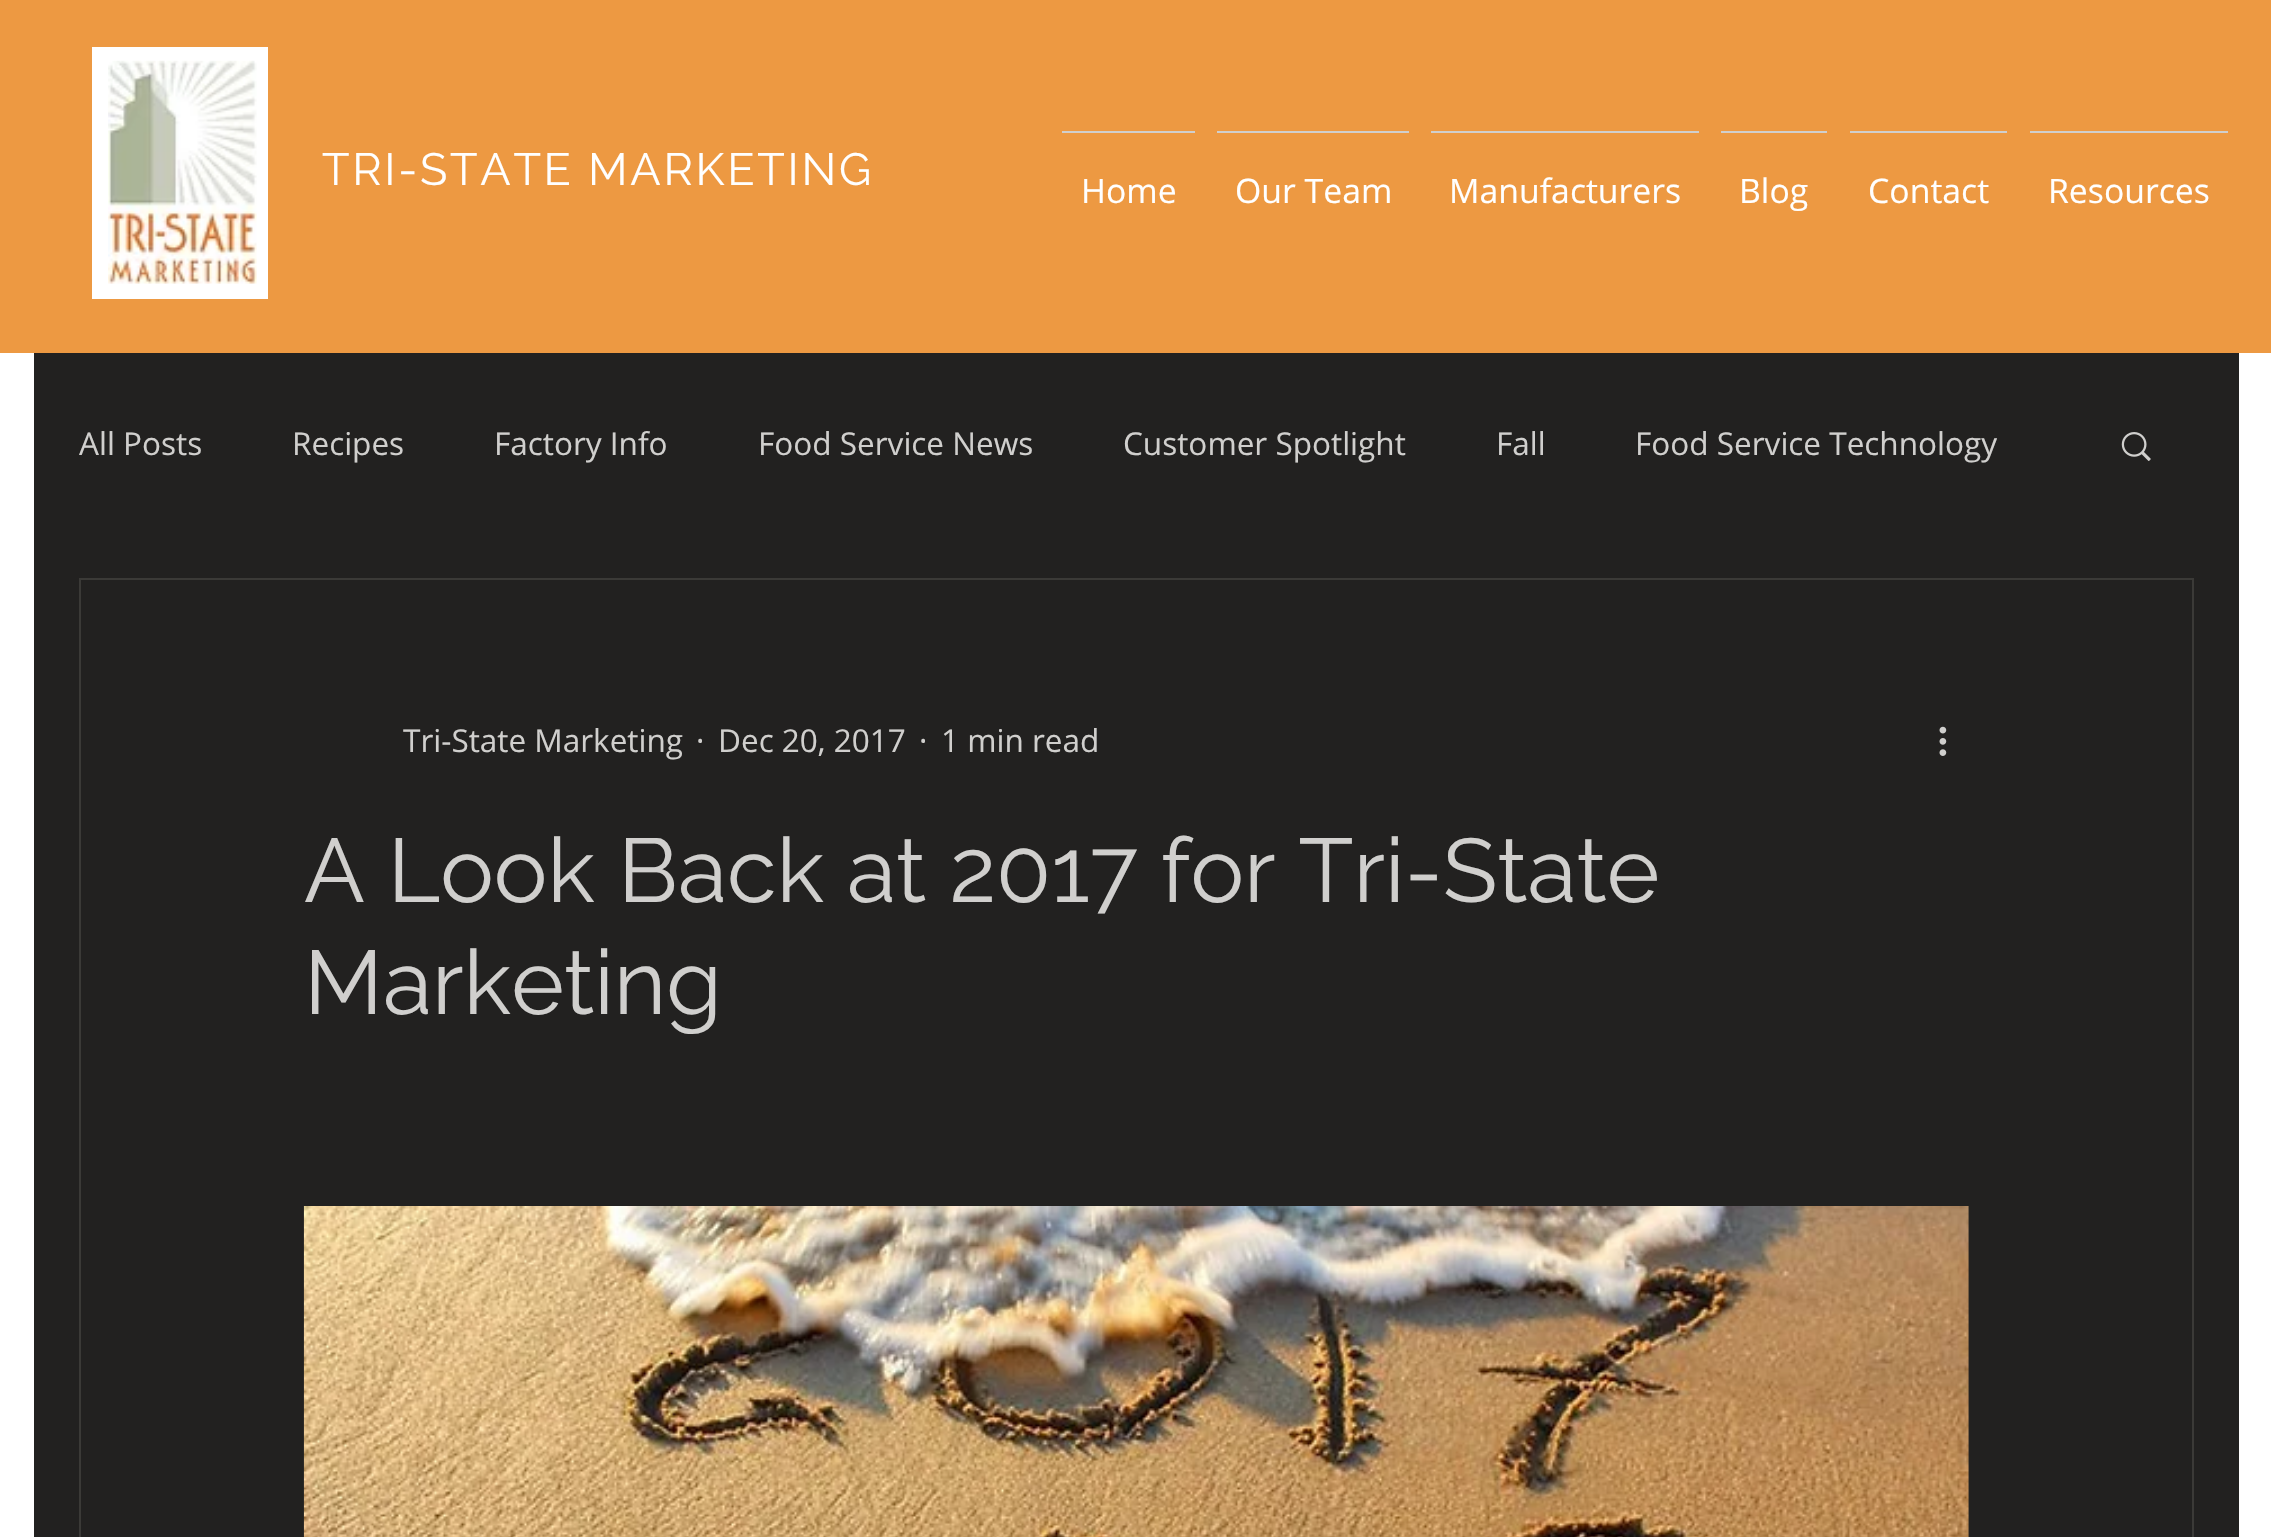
static SkFont makeFont(const char* family, int weight, float size, bool italic = false) {
  SkFontStyle style(weight, SkFontStyle::kNormal_Width,
    italic ? SkFontStyle::kItalic_Slant : SkFontStyle::kUpright_Slant);
  SkFont result(fontMgr->matchFamilyStyle(family, style), size);
  result.setSubpixel(true);
  return result;
}

static void text(SkCanvas* c, const char* s, float x, float y, const SkFont& font, SkColor color) {
  SkPaint ink(SkColor4f::FromColor(color));
  ink.setAntiAlias(true);
  c->drawString(s, x, y, font, ink);
}

static void spacedText(SkCanvas* c, const char* s, float x, float y, const SkFont& font, const SkPaint& ink, float letter, float word) {
  std::vector<SkGlyphID> glyphs(font.countText(s, strlen(s), SkTextEncoding::kUTF8));
  std::vector<float> xs(glyphs.size());
  font.textToGlyphs(s, strlen(s), SkTextEncoding::kUTF8, glyphs);
  font.getXPos(glyphs, xs, x);
  float extra = 0;
  for (size_t i = 0; i < glyphs.size(); i++) {
    xs[i] += extra;
    extra += letter + word * (glyphs[i] == font.unicharToGlyph(' '));
  }
  c->drawTextBlob(SkTextBlob::MakeFromPosHGlyphs(glyphs, xs, y, font), 0, 0, ink);
}

static void box(SkCanvas* c, float l, float t, float r, float b, SkColor color) {
  SkPaint ink(SkColor4f::FromColor(color));
  ink.setAntiAlias(true);
  c->drawRect(SkRect::MakeLTRB(l, t, r, b), ink);
}

static void picture(SkCanvas* c, const char* path, float l, float t, float r, float b) {
  auto image = SkImages::DeferredFromEncodedData(SkData::MakeFromFileName(path));
  c->drawImageRect(image, SkRect::MakeLTRB(l, t, r, b), SkSamplingOptions());
}

void draw(SkCanvas* c) {
  SkPaint paint;
  paint.setAntiAlias(true);
  c->clear(0xffffffff);
  box(c, 0, 0, 2271, 353, 0xffed9942);
  box(c, 92, 47, 268, 299, 0xffffffff);
  picture(c, "img_01.png", 108, 60, 257, 284);
  SkFont face1 = makeFont("Raleway", 400, 45);
  paint.setColor(0xffffffff);
  spacedText(c, "TRI-STATE MARKETING", 322, 185, face1, paint, 2.75f, 0);
  box(c, 1062, 131, 1195, 133, 0xffd0cfcd);
  SkFont face2 = makeFont("Open Sans", 400, 33.75f);
  text(c, "Home", 1081, 203, face2, 0xffffffff);
  box(c, 1217, 131, 1409, 133, 0xffd0cfcd);
  text(c, "Our Team", 1235, 203, face2, 0xffffffff);
  box(c, 1431, 131, 1699, 133, 0xffd0cfcd);
  text(c, "Manufacturers", 1449, 203, face2, 0xffffffff);
  box(c, 1721, 131, 1827, 133, 0xffd0cfcd);
  text(c, "Blog", 1739, 203, face2, 0xffffffff);
  box(c, 1850, 131, 2007, 133, 0xffd0cfcd);
  text(c, "Contact", 1868, 203, face2, 0xffffffff);
  box(c, 2030, 131, 2228, 133, 0xffd0cfcd);
  text(c, "Resources", 2048, 203, face2, 0xffffffff);
  box(c, 34, 353, 2239, 1537, 0xff222120);
  SkFont face3 = makeFont("Open Sans", 400, 31.5f);
  text(c, "All Posts", 79, 455, face3, 0xffd0cfcd);
  text(c, "Recipes", 292, 455, face3, 0xffd0cfcd);
  text(c, "Factory Info", 494, 455, face3, 0xffd0cfcd);
  text(c, "Food Service News", 758, 455, face3, 0xffd0cfcd);
  text(c, "Customer Spotlight", 1123, 455, face3, 0xffd0cfcd);
  text(c, "Fall", 1496, 455, face3, 0xffd0cfcd);
  text(c, "Food Service Technology", 1635, 455, face3, 0xffd0cfcd);
  picture(c, "img_02.png", 2121, 432, 2151, 461);
  paint.setStyle(SkPaint::kStroke_Style);
  paint.setStrokeWidth(2);
  paint.setColor(0xff3b3a37);
  c->drawRect(SkRect::MakeLTRB(80, 579, 2193, 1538), paint);
  text(c, "Tri-State Marketing", 403, 752, face3, 0xffd0cfcd);
  text(c, "·", 696, 752, face3, 0xffd0cfcd);
  text(c, "Dec 20, 2017", 718, 752, face3, 0xffd0cfcd);
  text(c, "·", 919, 752, face3, 0xffd0cfcd);
  text(c, "1 min read", 941, 752, face3, 0xffd0cfcd);
  picture(c, "img_03.png", 1939, 726, 1947, 756);
  SkFont face4 = makeFont("Raleway", 400, 90);
  text(c, "A Look Back at 2017 for Tri-State", 304, 902, face4, 0xffd0cfcd);
  text(c, "Marketing", 304, 1014, face4, 0xffd0cfcd);
  picture(c, "img_04.png", 303, 1206, 1969, 1537);
}
